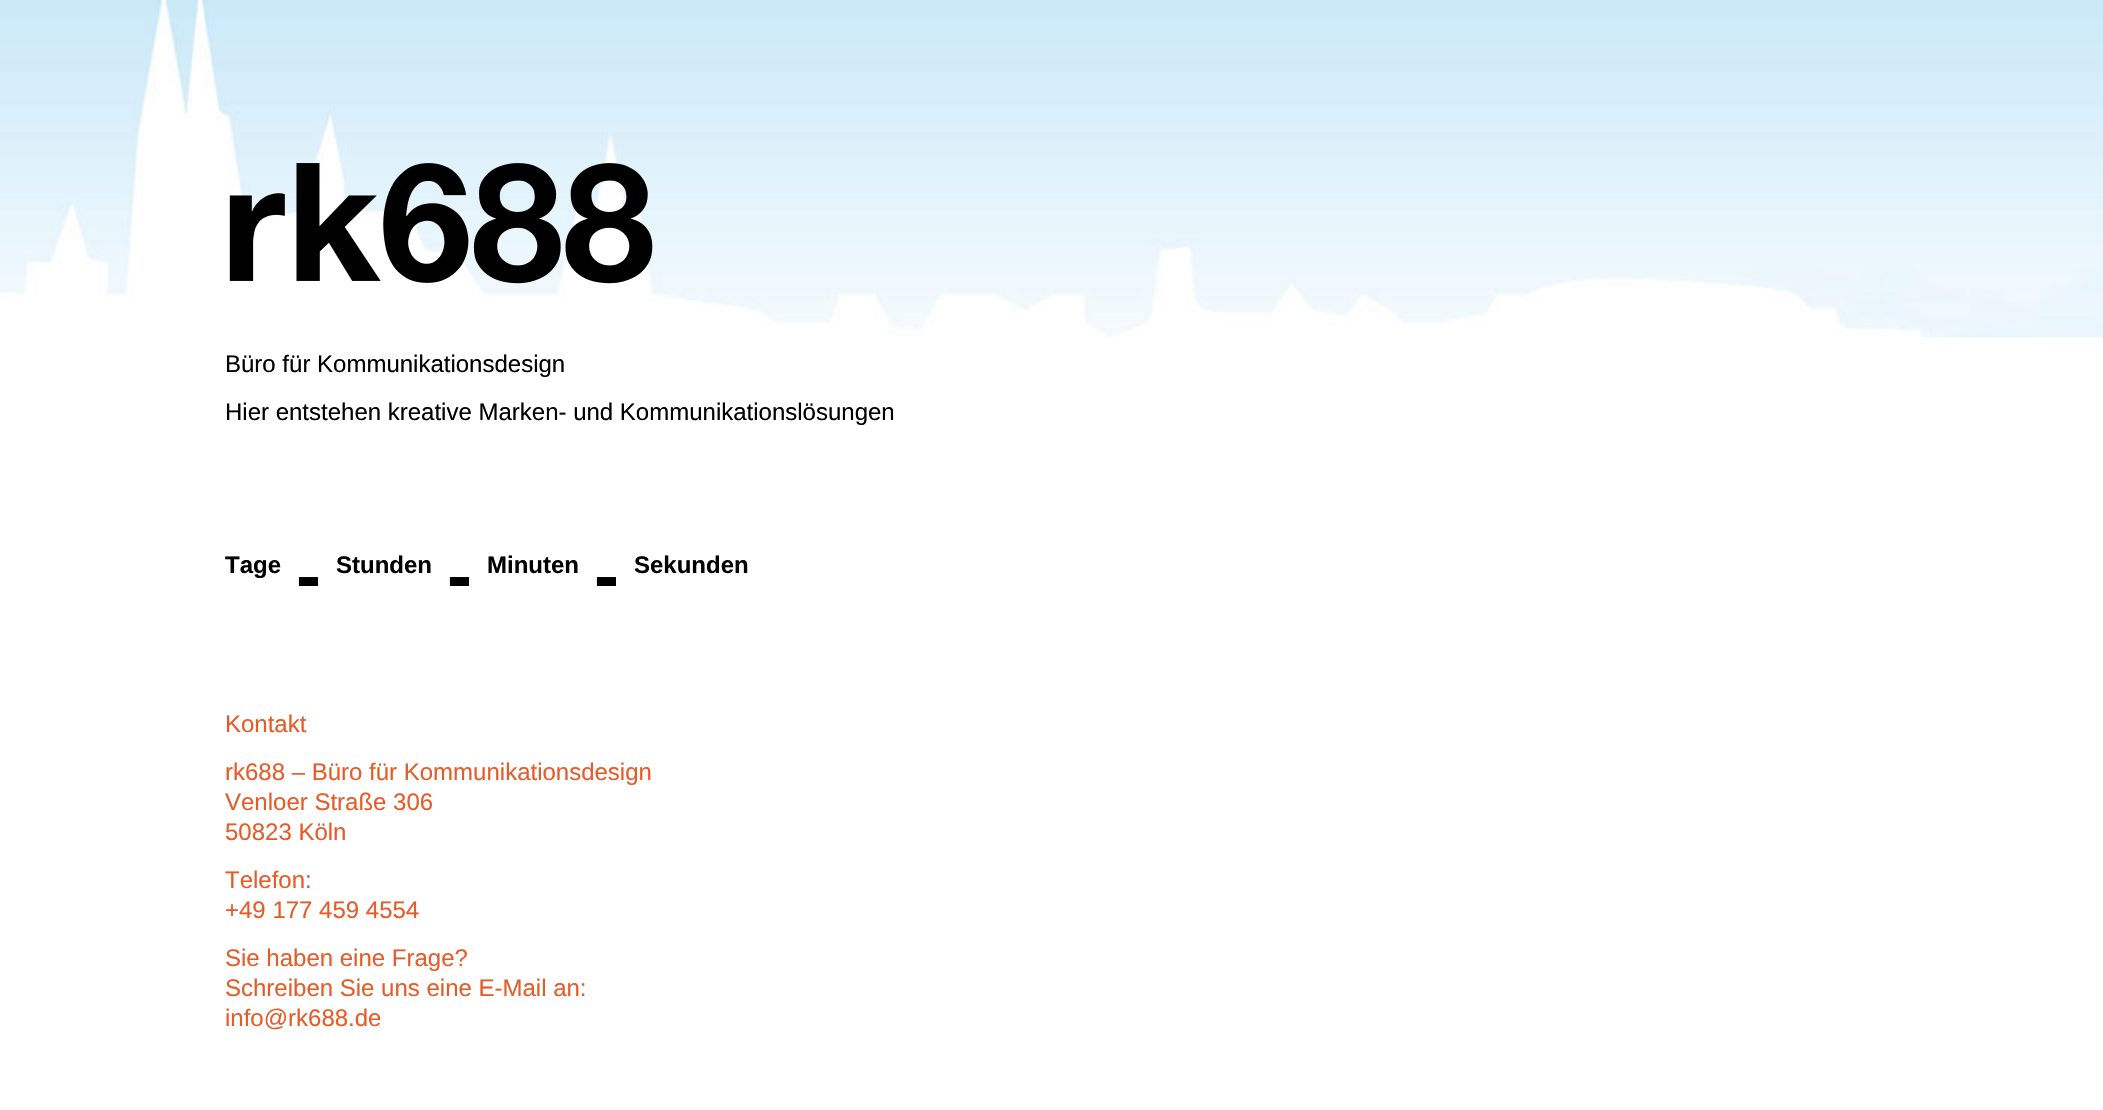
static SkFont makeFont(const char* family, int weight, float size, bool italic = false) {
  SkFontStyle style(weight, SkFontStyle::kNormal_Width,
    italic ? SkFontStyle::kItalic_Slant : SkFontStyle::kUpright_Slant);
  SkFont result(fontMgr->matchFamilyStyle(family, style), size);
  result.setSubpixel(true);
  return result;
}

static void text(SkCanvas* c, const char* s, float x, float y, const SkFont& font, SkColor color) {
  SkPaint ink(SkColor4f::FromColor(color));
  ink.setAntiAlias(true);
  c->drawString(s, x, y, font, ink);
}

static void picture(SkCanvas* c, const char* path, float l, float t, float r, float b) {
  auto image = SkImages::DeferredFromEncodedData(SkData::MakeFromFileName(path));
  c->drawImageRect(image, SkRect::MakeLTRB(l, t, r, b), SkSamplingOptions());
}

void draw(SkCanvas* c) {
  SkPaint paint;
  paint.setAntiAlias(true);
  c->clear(0xffffffff);
  picture(c, "img_01.png", 0, 0, 2103, 338);
  picture(c, "img_02.png", 229, 163, 653, 284);
  SkFont face1 = makeFont("Liberation Sans", 400, 24);
  text(c, "Büro für Kommunikationsdesign", 225, 372, face1, 0xff000000);
  text(c, "Hier entstehen kreative Marken- und Kommunikationslösungen", 225, 420, face1, 0xff000000);
  SkFont face2 = makeFont("Liberation Sans", 700, 24);
  text(c, "Tage", 225, 573, face2, 0xff000000);
  text(c, "Stunden", 336, 573, face2, 0xff000000);
  text(c, "Minuten", 487, 573, face2, 0xff000000);
  text(c, "Sekunden", 634, 573, face2, 0xff000000);
  SkFont face3 = makeFont("Liberation Sans", 700, 75);
  text(c, "-", 296, 601, face3, 0xff000000);
  text(c, "-", 447, 601, face3, 0xff000000);
  text(c, "-", 594, 601, face3, 0xff000000);
  text(c, "Kontakt", 225, 732, face1, 0xffe65c29);
  text(c, "rk688 – Büro für Kommunikationsdesign", 225, 780, face1, 0xffe65c29);
  text(c, "Venloer Straße 306", 225, 810, face1, 0xffe65c29);
  text(c, "50823 Köln", 225, 840, face1, 0xffe65c29);
  text(c, "Telefon:", 225, 888, face1, 0xffe65c29);
  text(c, "+49 177 459 4554", 225, 918, face1, 0xffe65c29);
  text(c, "Sie haben eine Frage?", 225, 966, face1, 0xffe65c29);
  text(c, "Schreiben Sie uns eine E-Mail an:", 225, 996, face1, 0xffe65c29);
  text(c, "info@rk688.de", 225, 1026, face1, 0xffe65c29);
}
